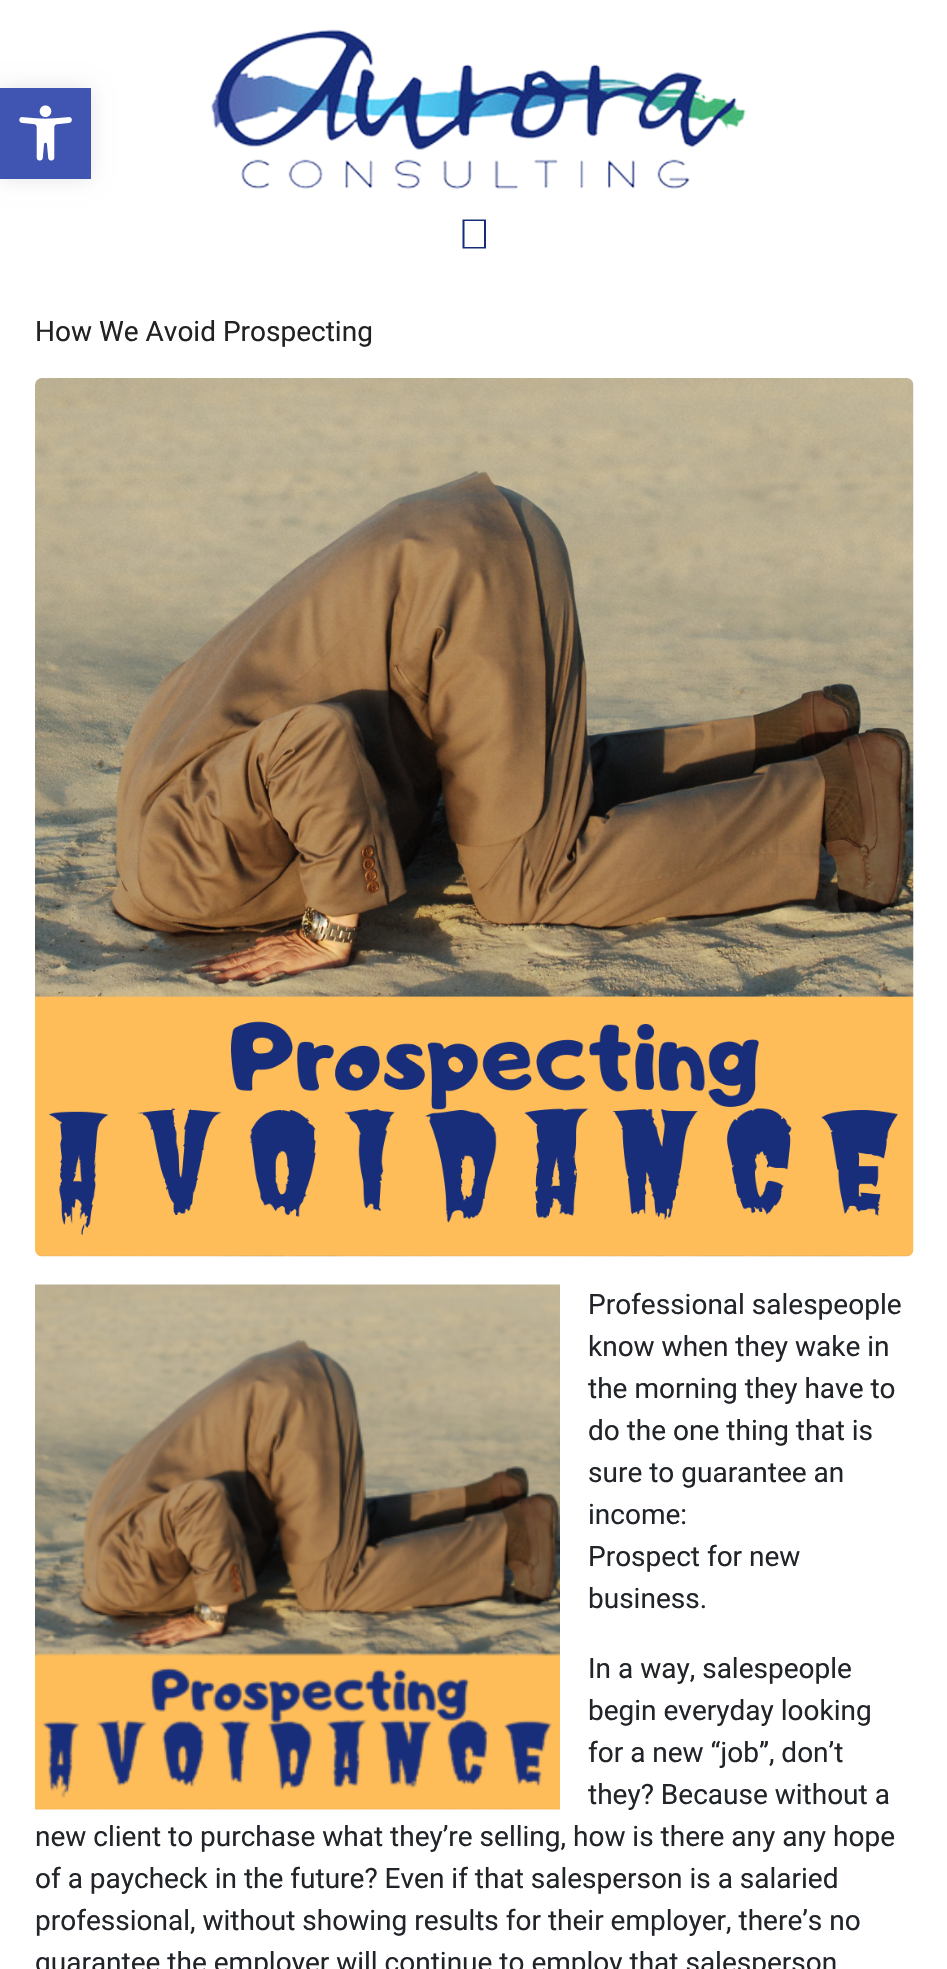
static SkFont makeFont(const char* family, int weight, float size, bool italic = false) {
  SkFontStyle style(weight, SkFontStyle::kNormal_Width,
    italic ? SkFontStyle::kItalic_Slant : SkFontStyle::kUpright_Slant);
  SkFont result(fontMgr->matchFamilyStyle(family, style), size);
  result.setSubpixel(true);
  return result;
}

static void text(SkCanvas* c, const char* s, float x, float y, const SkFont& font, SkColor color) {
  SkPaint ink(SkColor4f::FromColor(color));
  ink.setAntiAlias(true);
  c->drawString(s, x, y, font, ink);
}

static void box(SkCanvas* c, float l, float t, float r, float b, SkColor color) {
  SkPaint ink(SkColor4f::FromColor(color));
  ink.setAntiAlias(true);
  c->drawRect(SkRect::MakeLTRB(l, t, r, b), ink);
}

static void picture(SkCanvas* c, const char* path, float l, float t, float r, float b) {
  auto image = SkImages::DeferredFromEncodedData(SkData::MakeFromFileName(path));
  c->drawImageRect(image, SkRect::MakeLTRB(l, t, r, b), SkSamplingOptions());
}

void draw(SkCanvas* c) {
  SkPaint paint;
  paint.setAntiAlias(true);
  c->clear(0xffffffff);
  paint.setColor(0x1a000000);
  paint.setMaskFilter(SkMaskFilter::MakeBlur(kNormal_SkBlurStyle, 9));
  c->drawRect(SkRect::MakeLTRB(0, 88, 91, 179), paint);
  paint.setMaskFilter(nullptr);
  box(c, 0, 88, 91, 179, 0xff4054b2);
  picture(c, "img_01.png", 19, 105, 72, 161);
  picture(c, "img_02.png", 210, 29, 746, 190);
  paint.setColor(0xff162b7a);
  c->drawPath(SkPathBuilder().moveTo(462.5f, 219.5f).lineTo(486, 219.5f).lineTo(486, 248.5f).lineTo(462.5f, 248.5f).close().moveTo(464.5f, 221).lineTo(464.5f, 247).lineTo(484, 247).lineTo(484, 221).close().detach(), paint);
  SkFont face1 = makeFont("Roboto", 400, 28);
  text(c, "How We Avoid Prospecting", 35, 341, face1, 0xff222222);
  picture(c, "img_03.png", 35, 378, 914, 1257);
  picture(c, "img_04.png", 35, 1284, 560, 1810);
  text(c, "Professional salespeople", 588, 1314, face1, 0xff212529);
  text(c, "know when they wake in", 588, 1356, face1, 0xff212529);
  text(c, "the morning they have to", 588, 1398, face1, 0xff212529);
  text(c, "do the one thing that is", 588, 1440, face1, 0xff212529);
  text(c, "sure to guarantee an", 588, 1482, face1, 0xff212529);
  text(c, "income:", 588, 1524, face1, 0xff212529);
  text(c, "Prospect for new", 588, 1566, face1, 0xff212529);
  text(c, "business.", 588, 1608, face1, 0xff212529);
  text(c, "In a way, salespeople", 588, 1678, face1, 0xff212529);
  text(c, "begin everyday looking", 588, 1720, face1, 0xff212529);
  text(c, "for a new “job”, don’t", 588, 1762, face1, 0xff212529);
  text(c, "they? Because without a", 588, 1804, face1, 0xff212529);
  text(c, "new client to purchase what they’re selling, how is there any any hope", 35, 1846, face1, 0xff212529);
  text(c, "of a paycheck in the future? Even if that salesperson is a salaried", 35, 1888, face1, 0xff212529);
  text(c, "professional, without showing results for their employer, there’s no", 35, 1930, face1, 0xff212529);
  text(c, "guarantee the employer will continue to employ that salesperson", 35, 1972, face1, 0xff212529);
}
